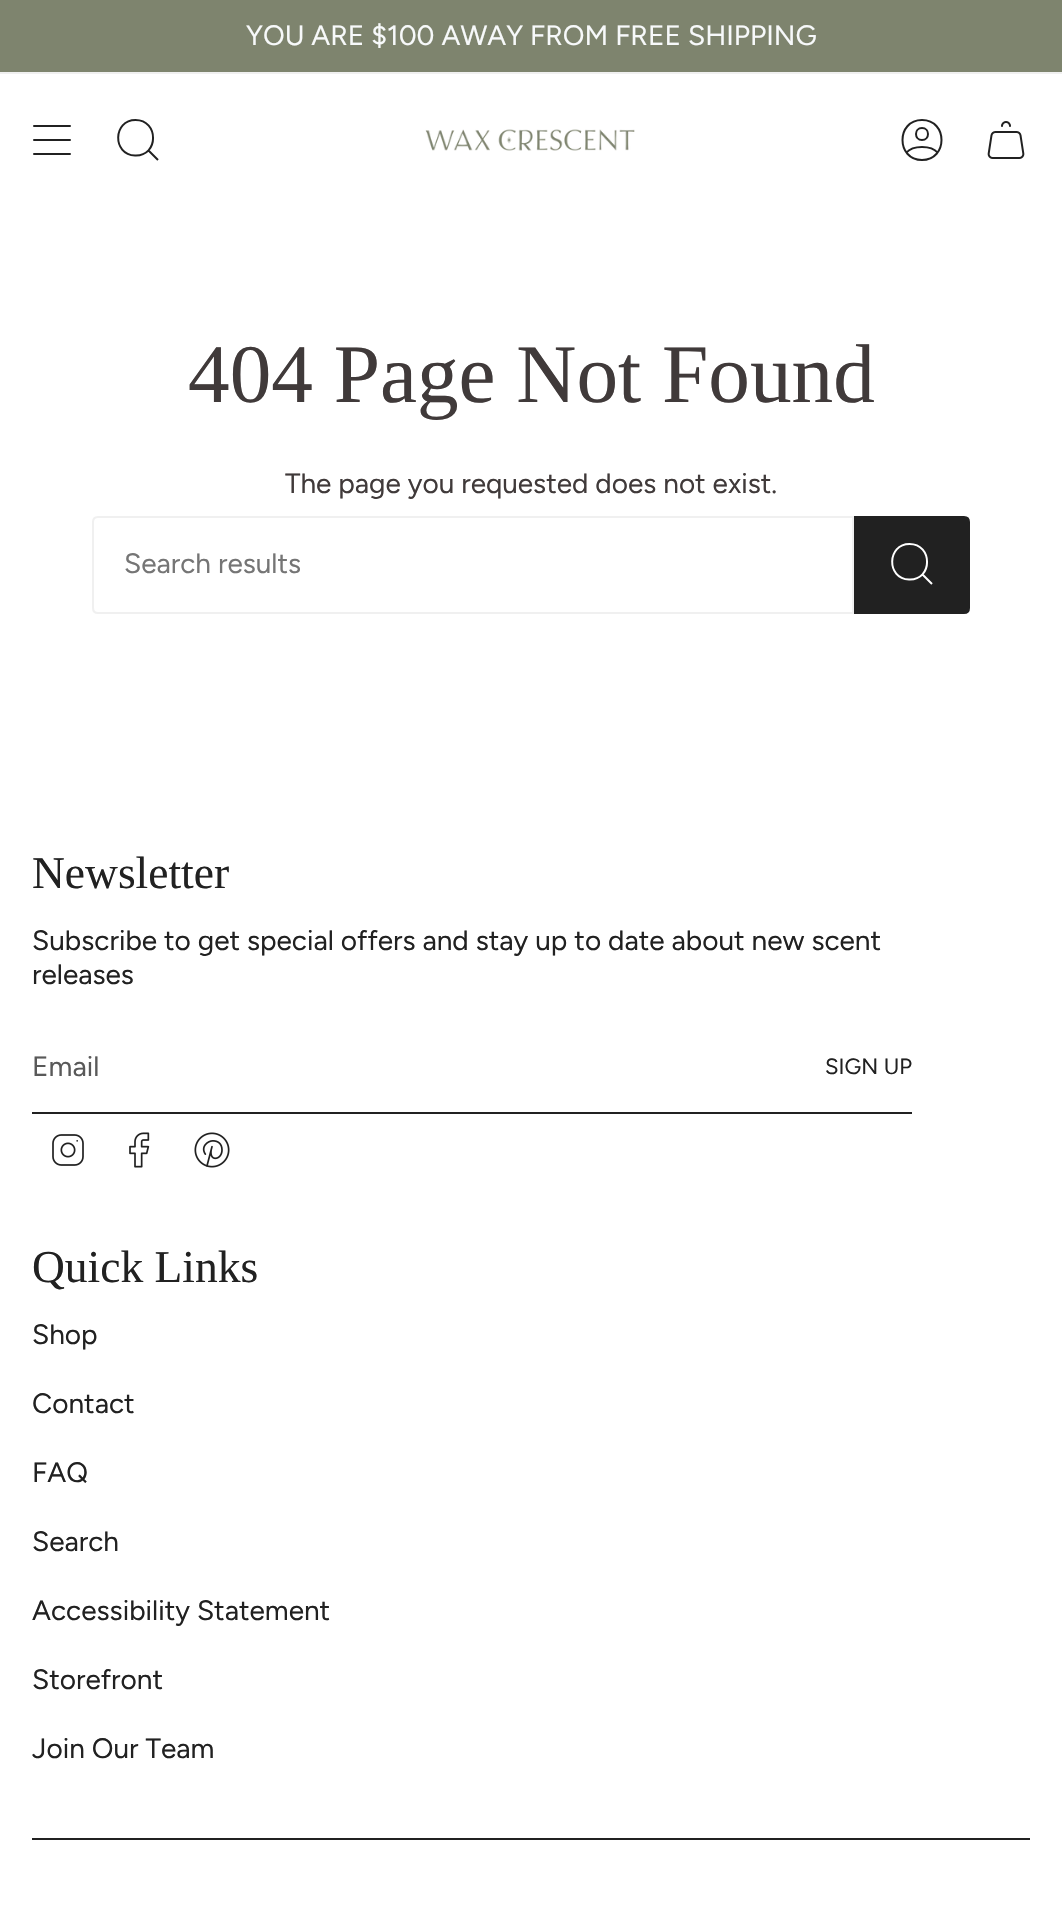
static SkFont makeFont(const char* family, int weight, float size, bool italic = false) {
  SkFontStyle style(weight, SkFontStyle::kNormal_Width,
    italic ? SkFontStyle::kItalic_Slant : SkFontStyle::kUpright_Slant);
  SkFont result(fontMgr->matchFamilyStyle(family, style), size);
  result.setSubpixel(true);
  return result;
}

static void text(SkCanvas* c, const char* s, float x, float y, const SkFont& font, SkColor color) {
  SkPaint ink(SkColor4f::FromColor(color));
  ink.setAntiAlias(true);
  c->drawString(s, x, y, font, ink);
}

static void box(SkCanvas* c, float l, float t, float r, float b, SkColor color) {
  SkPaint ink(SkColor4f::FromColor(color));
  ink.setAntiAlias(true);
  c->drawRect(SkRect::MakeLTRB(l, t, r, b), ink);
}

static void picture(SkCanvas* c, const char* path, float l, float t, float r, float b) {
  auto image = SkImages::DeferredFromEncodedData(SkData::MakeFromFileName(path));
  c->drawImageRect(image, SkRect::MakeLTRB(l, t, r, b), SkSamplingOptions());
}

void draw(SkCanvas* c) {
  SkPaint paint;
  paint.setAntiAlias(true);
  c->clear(0xffffffff);
  box(c, 0, 0, 1062, 72, 0xff7e846e);
  box(c, 0, 72, 1062, 74, 0xfff0f0f0);
  SkFont face1 = makeFont("Figtree", 400, 28);
  text(c, "YOU ARE $100 AWAY FROM FREE SHIPPING", 246, 45, face1, 0xfff7f9fa);
  paint.setStyle(SkPaint::kStroke_Style);
  paint.setStrokeWidth(2);
  paint.setStrokeCap(SkPaint::kRound_Cap);
  paint.setStrokeJoin(SkPaint::kRound_Join);
  paint.setColor(0xff212121);
  c->drawPath(SkPathBuilder().moveTo(34, 126).lineTo(70, 126).moveTo(34, 140).lineTo(70, 140).moveTo(34, 154).lineTo(70, 154).detach(), paint);
  paint.setStrokeCap(SkPaint::kButt_Cap);
  paint.setStrokeJoin(SkPaint::kMiter_Join);
  c->drawPath(SkPathBuilder().moveTo(135.5f, 120).cubicTo(159, 120, 159, 156.5f, 135, 155.5f).cubicTo(112, 154.5f, 113, 120, 135.5f, 120).close().moveTo(148, 150).lineTo(158, 160).detach(), paint);
  picture(c, "img_01.png", 425, 129, 635, 151);
  paint.setStrokeCap(SkPaint::kRound_Cap);
  paint.setStrokeJoin(SkPaint::kRound_Join);
  c->drawPath(SkPathBuilder().moveTo(922, 120).cubicTo(896, 120, 896, 160, 922, 160).cubicTo(948, 160, 948, 120, 922, 120).close().moveTo(906.5f, 152.5f).cubicTo(912.5f, 145, 931.5f, 145, 937.5f, 152.5f).moveTo(922, 140).cubicTo(930, 140, 930, 128, 922, 128).cubicTo(914, 128, 914, 140, 922, 140).close().detach(), paint);
  picture(c, "img_02.png", 987, 121, 1025, 159);
  SkFont face2 = makeFont("Liberation Serif", 400, 83.25f);
  text(c, "404 Page Not Found", 188, 402, face2, 0xff403a3a);
  text(c, "The page you requested does not exist.", 285, 493, face1, 0xff403a3a);
  paint.setStrokeCap(SkPaint::kButt_Cap);
  paint.setStrokeJoin(SkPaint::kMiter_Join);
  paint.setColor(0xfff0f0f0);
  c->drawPath(SkPathBuilder().moveTo(98, 517).lineTo(853, 517).lineTo(853, 613).lineTo(98, 613).cubicTo(95, 613, 93, 611, 93, 608).lineTo(93, 522).cubicTo(93, 519, 95, 517, 98, 517).close().detach(), paint);
  text(c, "Search results", 124, 573, face1, 0xff757575);
  paint.setStyle(SkPaint::kFill_Style);
  paint.setColor(0xff212121);
  c->drawPath(SkPathBuilder().moveTo(855, 517).lineTo(964, 517).cubicTo(967, 517, 969, 519, 969, 522).lineTo(969, 608).cubicTo(969, 611, 967, 613, 964, 613).lineTo(855, 613).close().detach(), paint);
  paint.setStyle(SkPaint::kStroke_Style);
  c->drawPath(SkPathBuilder().moveTo(855, 517).lineTo(964, 517).cubicTo(967, 517, 969, 519, 969, 522).lineTo(969, 608).cubicTo(969, 611, 967, 613, 964, 613).lineTo(855, 613).close().detach(), paint);
  paint.setColor(0xffffffff);
  c->drawPath(SkPathBuilder().moveTo(909.5f, 544).cubicTo(933, 544, 933, 580.5f, 909, 579.5f).cubicTo(886, 578.5f, 887, 544, 909.5f, 544).close().moveTo(922, 574).lineTo(932, 584).detach(), paint);
  SkFont face3 = makeFont("Liberation Serif", 400, 45.5f);
  text(c, "Newsletter", 32, 888, face3, 0xff212121);
  text(c, "Subscribe to get special offers and stay up to date about new scent", 32, 950, face1, 0xff212121);
  text(c, "releases", 32, 984, face1, 0xff212121);
  box(c, 32, 1112, 912, 1114, 0xff212121);
  text(c, "Email", 32, 1076, face1, 0xff595959);
  SkFont face4 = makeFont("Figtree", 400, 22);
  text(c, "SIGN UP", 825, 1074, face4, 0xff212121);
  picture(c, "img_03.png", 52, 1134, 84, 1166);
  picture(c, "img_04.png", 129, 1132, 150, 1168);
  picture(c, "img_05.png", 194, 1132, 230, 1168);
  text(c, "Quick Links", 32, 1282, face3, 0xff212121);
  text(c, "Shop", 32, 1344, face1, 0xff212121);
  text(c, "Contact", 32, 1413, face1, 0xff212121);
  text(c, "FAQ", 32, 1482, face1, 0xff212121);
  text(c, "Search", 32, 1551, face1, 0xff212121);
  text(c, "Accessibility Statement", 32, 1620, face1, 0xff212121);
  text(c, "Storefront", 32, 1689, face1, 0xff212121);
  text(c, "Join Our Team", 32, 1758, face1, 0xff212121);
  box(c, 32, 1838, 1030, 1840, 0xff212121);
}
